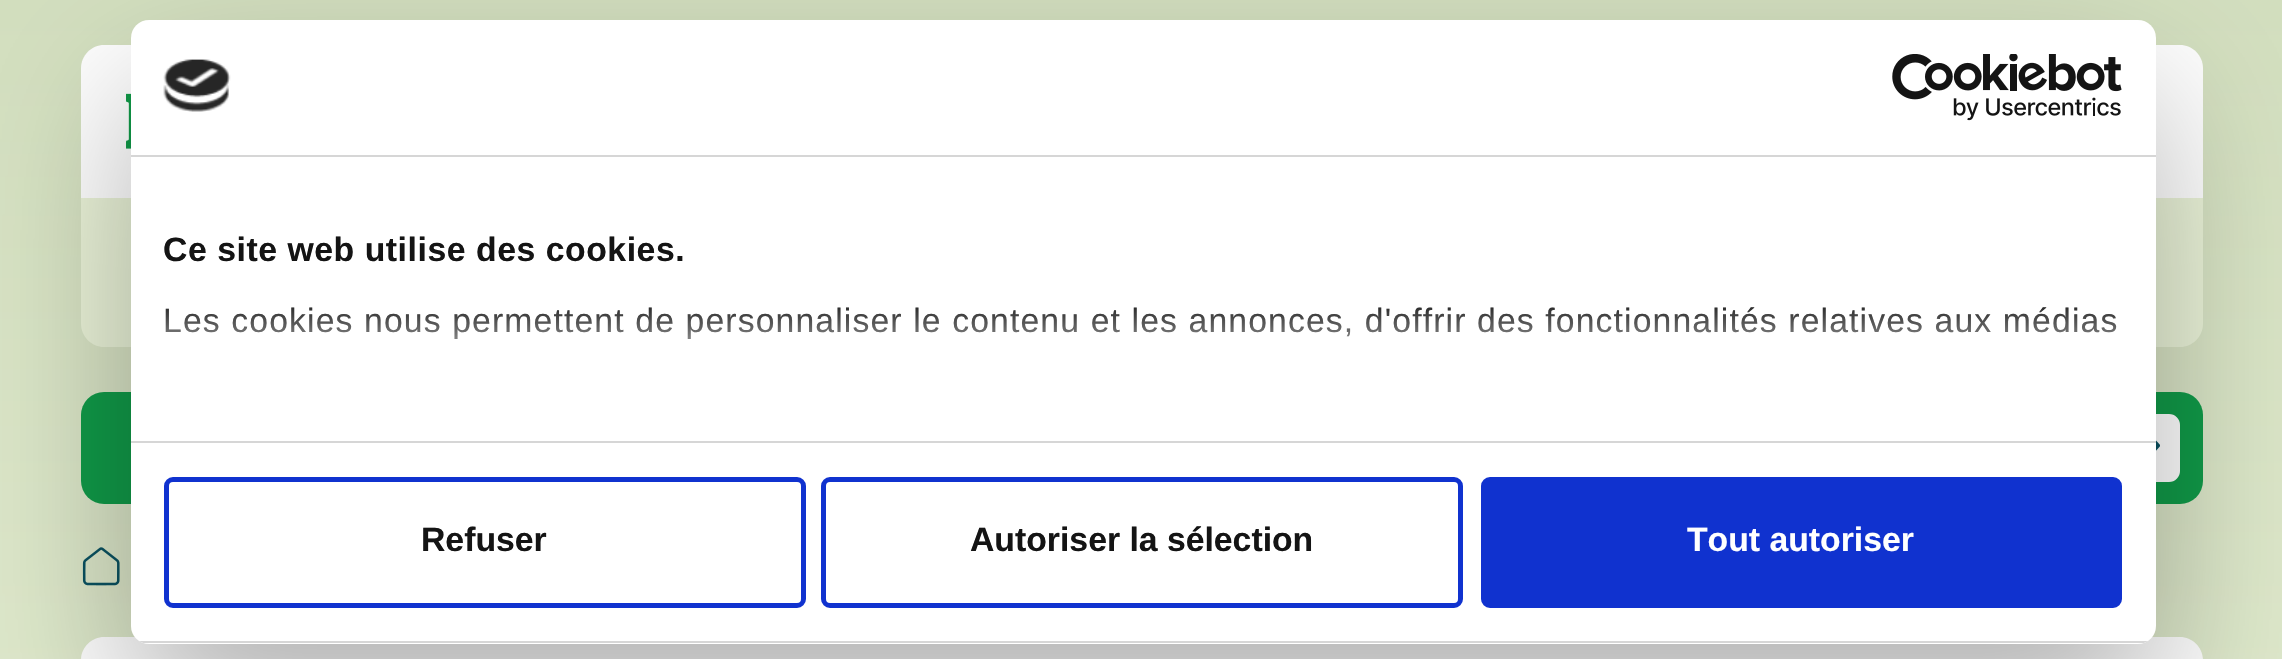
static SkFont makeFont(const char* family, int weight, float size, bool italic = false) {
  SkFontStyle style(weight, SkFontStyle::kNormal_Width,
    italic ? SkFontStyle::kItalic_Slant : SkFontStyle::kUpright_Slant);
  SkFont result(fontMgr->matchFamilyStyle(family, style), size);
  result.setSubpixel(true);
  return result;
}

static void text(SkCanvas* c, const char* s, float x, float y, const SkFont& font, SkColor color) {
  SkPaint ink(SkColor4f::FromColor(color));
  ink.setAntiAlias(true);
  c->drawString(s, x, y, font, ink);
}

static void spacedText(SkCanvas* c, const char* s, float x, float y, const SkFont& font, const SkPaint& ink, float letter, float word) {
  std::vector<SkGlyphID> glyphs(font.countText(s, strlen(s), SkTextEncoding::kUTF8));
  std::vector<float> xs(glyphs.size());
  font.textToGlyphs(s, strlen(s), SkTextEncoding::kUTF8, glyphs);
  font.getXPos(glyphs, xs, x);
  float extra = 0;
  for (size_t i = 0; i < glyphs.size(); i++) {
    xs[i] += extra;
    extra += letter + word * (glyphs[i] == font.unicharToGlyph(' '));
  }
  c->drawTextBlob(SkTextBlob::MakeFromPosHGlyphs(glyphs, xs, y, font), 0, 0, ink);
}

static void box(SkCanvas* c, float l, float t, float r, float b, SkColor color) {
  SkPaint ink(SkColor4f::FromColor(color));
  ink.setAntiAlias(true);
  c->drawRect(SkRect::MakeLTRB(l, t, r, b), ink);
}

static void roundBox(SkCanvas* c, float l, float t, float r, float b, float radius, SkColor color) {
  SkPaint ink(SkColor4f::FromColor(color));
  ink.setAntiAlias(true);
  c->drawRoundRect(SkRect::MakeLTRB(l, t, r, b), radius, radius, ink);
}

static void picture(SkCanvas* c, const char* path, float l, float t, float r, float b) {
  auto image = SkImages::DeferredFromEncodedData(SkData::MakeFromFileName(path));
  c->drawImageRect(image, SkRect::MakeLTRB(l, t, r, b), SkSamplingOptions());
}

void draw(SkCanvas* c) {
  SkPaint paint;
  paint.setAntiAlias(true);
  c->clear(0xffffffff);
  {
    const SkColor colors[] = {0xffd3dfbf, 0xffeaf3d8, 0xffdde2d5};
    const float stops[] = {0, 0.52f, 0.98f};
    const SkPoint ends[] = {{1142, 0}, {1142, 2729}};
    paint.setShader(SkGradientShader::MakeLinear(ends, colors, stops, 3, SkTileMode::kClamp));
    paint.setAlpha(255);
  }
  c->drawRect(SkRect::MakeLTRB(0, 0, 2282, 659), paint);
  paint.setShader(nullptr);
  paint.setColor(0xffffffff);
  c->drawPath(SkPathBuilder().moveTo(104, 45).lineTo(2180, 45).cubicTo(2192.5f, 45, 2203, 55.5f, 2203, 68).lineTo(2203, 198).lineTo(81, 198).lineTo(81, 68).cubicTo(81, 55.5f, 91.5f, 45, 104, 45).close().detach(), paint);
  picture(c, "img_01.png", 126, 93, 131, 149);
  paint.setColor(0xffeaf3d8);
  c->drawPath(SkPathBuilder().moveTo(81, 198).lineTo(2203, 198).lineTo(2203, 324).cubicTo(2203, 336.5f, 2192.5f, 347, 2180, 347).lineTo(104, 347).cubicTo(91.5f, 347, 81, 336.5f, 81, 324).close().detach(), paint);
  roundBox(c, 81, 392, 2203, 504, 23, 0xff109a48);
  paint.setColor(0xffffffff);
  c->drawRoundRect(SkRect::MakeLTRB(2115.5f, 416.5f, 2177.5f, 479.5f), 8.5f, 8.5f, paint);
  paint.setStyle(SkPaint::kStroke_Style);
  paint.setStrokeWidth(5);
  c->drawRoundRect(SkRect::MakeLTRB(2115.5f, 416.5f, 2177.5f, 479.5f), 8.5f, 8.5f, paint);
  picture(c, "img_04.png", 2156, 440, 2160, 451);
  picture(c, "img_05.png", 82, 547, 120, 586);
  paint.setStyle(SkPaint::kFill_Style);
  c->drawPath(SkPathBuilder().moveTo(104, 637).lineTo(2180, 637).cubicTo(2192.5f, 637, 2203, 647.5f, 2203, 660).lineTo(2203, 659).lineTo(81, 659).lineTo(81, 660).cubicTo(81, 647.5f, 91.5f, 637, 104, 637).close().detach(), paint);
  paint.setColor(0x4d000000);
  paint.setMaskFilter(SkMaskFilter::MakeBlur(kNormal_SkBlurStyle, 76.5f));
  c->drawRoundRect(SkRect::MakeLTRB(131, 92, 2156, 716), 18, 18, paint);
  paint.setMaskFilter(nullptr);
  roundBox(c, 131, 20, 2156, 644, 18, 0xffffffff);
  box(c, 131, 155, 2156, 157, 0xffd6d6d6);
  picture(c, "img_02.png", 163, 59, 231, 112);
  picture(c, "img_03.png", 1892, 54, 2122, 121);
  box(c, 131, 441, 2156, 443, 0xffd6d6d6);
  SkFont face1 = makeFont("Liberation Sans", 700, 33.75f);
  paint.setColor(0xff141414);
  spacedText(c, "Ce site web utilise des cookies.", 163, 261, face1, paint, 0.55f, 0);
  SkFont face2 = makeFont("Liberation Sans", 400, 33.75f);
  spacedText(c, "Les cookies nous permettent de personnaliser le contenu et les annonces, d'offrir des fonctionnalités relatives aux médias", 163, 332, face2, paint, 1.12f, 0);
  {
    const SkColor colors[] = {0xffffffff, 0xccffffff, 0x00ffffff};
    const float stops[] = {0, 0.5f, 1};
    const SkPoint ends[] = {{1128, 440}, {1128, 298}};
    paint.setShader(SkGradientShader::MakeLinear(ends, colors, stops, 3, SkTileMode::kClamp));
    paint.setAlpha(255);
  }
  c->drawRect(SkRect::MakeLTRB(165, 307, 2117, 339), paint);
  c->save();
  c->clipPath(SkPathBuilder().moveTo(149, 20).lineTo(2138, 20).cubicTo(2148, 20, 2156, 28, 2156, 38).lineTo(2156, 626).cubicTo(2156, 636, 2148, 644, 2138, 644).lineTo(149, 644).cubicTo(139, 644, 131, 636, 131, 626).lineTo(131, 38).cubicTo(131, 28, 139, 20, 149, 20).close().detach(), true);
  box(c, 131, 641, 2156, 643, 0xffd6d6d6);
  c->restore();
  paint.setStyle(SkPaint::kStroke_Style);
  paint.setShader(nullptr);
  paint.setColor(0xff1032cf);
  c->drawRoundRect(SkRect::MakeLTRB(166.5f, 479.5f, 803.5f, 605.5f), 6.5f, 6.5f, paint);
  text(c, "Refuser", 421, 551, face1, 0xff141414);
  c->drawRoundRect(SkRect::MakeLTRB(823.5f, 479.5f, 1460.5f, 605.5f), 6.5f, 6.5f, paint);
  text(c, "Autoriser la sélection", 970, 551, face1, 0xff141414);
  paint.setStyle(SkPaint::kFill_Style);
  c->drawRoundRect(SkRect::MakeLTRB(1483.5f, 479.5f, 2119.5f, 605.5f), 6.5f, 6.5f, paint);
  paint.setStyle(SkPaint::kStroke_Style);
  c->drawRoundRect(SkRect::MakeLTRB(1483.5f, 479.5f, 2119.5f, 605.5f), 6.5f, 6.5f, paint);
  text(c, "Tout autoriser", 1687, 551, face1, 0xffffffff);
}
